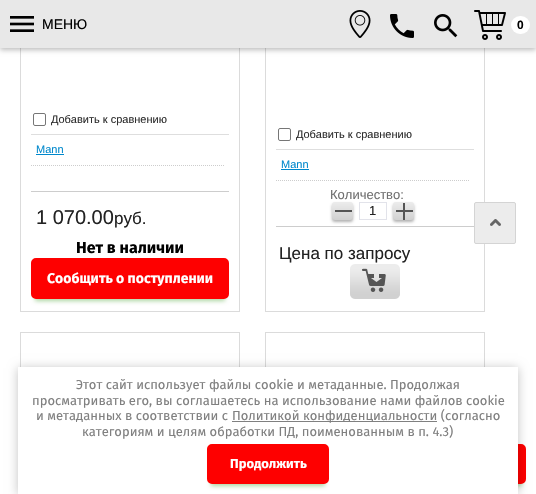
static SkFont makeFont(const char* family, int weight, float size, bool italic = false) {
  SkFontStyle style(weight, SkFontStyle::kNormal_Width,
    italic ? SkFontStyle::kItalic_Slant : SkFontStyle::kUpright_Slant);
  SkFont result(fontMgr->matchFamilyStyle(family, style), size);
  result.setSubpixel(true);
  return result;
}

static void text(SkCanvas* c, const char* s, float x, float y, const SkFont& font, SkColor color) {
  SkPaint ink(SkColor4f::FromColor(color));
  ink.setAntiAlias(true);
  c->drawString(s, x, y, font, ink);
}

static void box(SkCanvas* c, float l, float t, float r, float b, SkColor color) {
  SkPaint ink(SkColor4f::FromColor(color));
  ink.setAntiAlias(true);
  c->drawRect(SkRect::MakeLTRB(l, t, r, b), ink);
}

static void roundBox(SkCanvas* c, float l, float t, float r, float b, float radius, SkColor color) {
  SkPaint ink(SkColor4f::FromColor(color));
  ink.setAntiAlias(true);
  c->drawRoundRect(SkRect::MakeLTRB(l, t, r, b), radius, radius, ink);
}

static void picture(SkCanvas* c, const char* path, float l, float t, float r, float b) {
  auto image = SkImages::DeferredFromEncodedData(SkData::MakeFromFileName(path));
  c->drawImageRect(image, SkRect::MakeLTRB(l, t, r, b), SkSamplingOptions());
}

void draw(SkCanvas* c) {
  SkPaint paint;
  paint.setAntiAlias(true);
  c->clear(0xffffffff);
  box(c, 239, 48, 240, 312, 0xffdbdbdb);
  box(c, 20, 311, 240, 312, 0xffdbdbdb);
  box(c, 20, 48, 21, 312, 0xffdbdbdb);
  box(c, 484, 48, 485, 202, 0xffdbdbdb);
  box(c, 484, 244, 485, 312, 0xffdbdbdb);
  box(c, 265, 311, 485, 312, 0xffdbdbdb);
  box(c, 265, 48, 266, 312, 0xffdbdbdb);
  paint.setColor(0x42000000);
  paint.setMaskFilter(SkMaskFilter::MakeBlur(kNormal_SkBlurStyle, 2.5f));
  c->drawRect(SkRect::MakeLTRB(0, 2, 536, 50), paint);
  paint.setMaskFilter(nullptr);
  box(c, 0, 0, 536, 48, 0xffe8e8e8);
  picture(c, "img_01.png", 10, 16, 34, 32);
  SkFont face1 = makeFont("Liberation Sans", 400, 14);
  text(c, "МЕНЮ", 42, 29, face1, 0xff000000);
  picture(c, "img_02.png", 349, 10, 371, 38);
  picture(c, "img_03.png", 390, 14, 414, 38);
  picture(c, "img_04.png", 434, 14, 458, 38);
  picture(c, "img_05.png", 474, 10, 506, 40);
  roundBox(c, 511, 16, 530, 34, 9, 0xffffffff);
  SkFont face2 = makeFont("Liberation Sans", 700, 12);
  text(c, "0", 517, 29, face2, 0xff000000);
  box(c, 31, 134, 229, 135, 0xffdedede);
  paint.setStyle(SkPaint::kStroke_Style);
  paint.setStrokeWidth(1);
  paint.setColor(0xff767676);
  c->drawRoundRect(SkRect::MakeLTRB(33.5f, 113.5f, 45.5f, 125.5f), 1.5f, 1.5f, paint);
  SkFont face3 = makeFont("Liberation Sans", 400, 11);
  text(c, "Добавить к сравнению", 51, 123, face3, 0xff2d2d2d);
  paint.setColor(0xffcdcdcd);
  paint.setPathEffect(SkDashPathEffect::Make({{1, 1}}, 0));
  c->drawPath(SkPathBuilder().moveTo(31, 165.5f).lineTo(225, 165.5f).detach(), paint);
  paint.setPathEffect(nullptr);
  text(c, "Mann", 36, 153, face3, 0xff0088cc);
  box(c, 36, 154, 64, 155, 0xff0088cc);
  box(c, 31, 191, 229, 192, 0xffcdcdcd);
  SkFont face4 = makeFont("Liberation Sans", 400, 20);
  text(c, "1 070.00", 36, 224, face4, 0xff222222);
  SkFont face5 = makeFont("Liberation Sans", 400, 17);
  text(c, "руб.", 114, 224, face5, 0xff222222);
  paint.setStyle(SkPaint::kFill_Style);
  paint.setColor(0xffacd6a2);
  paint.setMaskFilter(SkMaskFilter::MakeBlur(kNormal_SkBlurStyle, 2));
  c->drawRoundRect(SkRect::MakeLTRB(35, 268, 225, 301), 1, 1, paint);
  paint.setMaskFilter(nullptr);
  paint.setColor(0xfffe0000);
  c->drawRoundRect(SkRect::MakeLTRB(32, 259, 228, 298), 4, 4, paint);
  paint.setStyle(SkPaint::kStroke_Style);
  paint.setStrokeWidth(2);
  c->drawRoundRect(SkRect::MakeLTRB(32, 259, 228, 298), 4, 4, paint);
  SkFont face6 = makeFont("Fira Sans", 700, 16);
  text(c, "Нет в наличии", 76, 253, face6, 0xff000000);
  SkFont face7 = makeFont("Fira Sans", 700, 14);
  text(c, "Сообщить о поступлении", 47, 283, face7, 0xffffffff);
  box(c, 276, 149, 474, 150, 0xffdedede);
  paint.setStrokeWidth(1);
  paint.setColor(0xff767676);
  c->drawRoundRect(SkRect::MakeLTRB(278.5f, 128.5f, 290.5f, 140.5f), 1.5f, 1.5f, paint);
  text(c, "Добавить к сравнению", 296, 138, face3, 0xff2d2d2d);
  paint.setColor(0xffcdcdcd);
  paint.setPathEffect(SkDashPathEffect::Make({{1, 1}}, 0));
  c->drawPath(SkPathBuilder().moveTo(276, 180.5f).lineTo(470, 180.5f).detach(), paint);
  paint.setPathEffect(nullptr);
  text(c, "Mann", 281, 168, face3, 0xff0088cc);
  box(c, 281, 169, 309, 170, 0xff0088cc);
  SkFont face8 = makeFont("Liberation Sans", 400, 13);
  text(c, "Количество:", 330, 199, face8, 0xff707070);
  box(c, 276, 226, 474, 227, 0xffcdcdcd);
  paint.setStyle(SkPaint::kFill_Style);
  paint.setColor(0x4d000000);
  paint.setMaskFilter(SkMaskFilter::MakeBlur(kNormal_SkBlurStyle, 1.5f));
  c->drawRoundRect(SkRect::MakeLTRB(332, 204, 353, 222), 3, 3, paint);
  paint.setMaskFilter(nullptr);
  {
    const SkColor colors[] = {0xffececec, 0xffd1d1d1};
    const float stops[] = {0, 1};
    const SkPoint ends[] = {{343, 202}, {343, 220}};
    paint.setShader(SkGradientShader::MakeLinear(ends, colors, stops, 2, SkTileMode::kClamp));
    paint.setAlpha(255);
  }
  c->drawRoundRect(SkRect::MakeLTRB(332, 202, 353, 220), 3, 3, paint);
  box(c, 335, 210, 352, 212, 0xff555555);
  paint.setStyle(SkPaint::kStroke_Style);
  paint.setShader(nullptr);
  paint.setColor(0xffe2e3ea);
  c->drawRect(SkRect::MakeLTRB(359.5f, 202.5f, 386.5f, 219.5f), paint);
  text(c, "1", 369, 215, face8, 0xff222222);
  paint.setStyle(SkPaint::kFill_Style);
  paint.setColor(0x4d000000);
  paint.setMaskFilter(SkMaskFilter::MakeBlur(kNormal_SkBlurStyle, 1.5f));
  c->drawRoundRect(SkRect::MakeLTRB(393, 204, 414, 222), 3, 3, paint);
  paint.setMaskFilter(nullptr);
  {
    const SkColor colors[] = {0xffececec, 0xffd1d1d1};
    const float stops[] = {0, 1};
    const SkPoint ends[] = {{404, 202}, {404, 220}};
    paint.setShader(SkGradientShader::MakeLinear(ends, colors, stops, 2, SkTileMode::kClamp));
    paint.setAlpha(255);
  }
  c->drawRoundRect(SkRect::MakeLTRB(393, 202, 414, 220), 3, 3, paint);
  box(c, 396, 210, 413, 212, 0xff555555);
  box(c, 403, 203, 405, 220, 0xff555555);
  text(c, "Цена по запросу", 279, 259, face5, 0xff222222);
  picture(c, "img_06.png", 350, 264, 400, 299);
  picture(c, "img_07.png", 362, 268, 386, 292);
  box(c, 20, 332, 240, 333, 0xffdbdbdb);
  box(c, 239, 332, 240, 367, 0xffdbdbdb);
  box(c, 20, 332, 21, 367, 0xffdbdbdb);
  box(c, 265, 332, 485, 333, 0xffdbdbdb);
  box(c, 484, 332, 485, 367, 0xffdbdbdb);
  box(c, 265, 332, 266, 367, 0xffdbdbdb);
  paint.setShader(nullptr);
  paint.setColor(0xffececec);
  c->drawRoundRect(SkRect::MakeLTRB(474.5f, 202.5f, 515.5f, 243.5f), 1.5f, 1.5f, paint);
  paint.setStyle(SkPaint::kStroke_Style);
  paint.setColor(0xffd4d4d4);
  c->drawRoundRect(SkRect::MakeLTRB(474.5f, 202.5f, 515.5f, 243.5f), 1.5f, 1.5f, paint);
  picture(c, "img_08.png", 490, 219, 501, 226);
  paint.setStyle(SkPaint::kFill_Style);
  paint.setColor(0xffacd6a2);
  paint.setMaskFilter(SkMaskFilter::MakeBlur(kNormal_SkBlurStyle, 2));
  c->drawRoundRect(SkRect::MakeLTRB(356, 454, 522, 486), 1, 1, paint);
  paint.setMaskFilter(nullptr);
  paint.setColor(0xfffe0000);
  c->drawRoundRect(SkRect::MakeLTRB(353, 445, 525, 483), 4, 4, paint);
  paint.setStyle(SkPaint::kStroke_Style);
  paint.setStrokeWidth(2);
  c->drawRoundRect(SkRect::MakeLTRB(353, 445, 525, 483), 4, 4, paint);
  paint.setStyle(SkPaint::kFill_Style);
  paint.setColor(0x3b000000);
  paint.setMaskFilter(SkMaskFilter::MakeBlur(kNormal_SkBlurStyle, 5));
  c->drawRect(SkRect::MakeLTRB(18, 368, 518, 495), paint);
  paint.setMaskFilter(nullptr);
  box(c, 18, 367, 518, 494, 0xffffffff);
  SkFont face9 = makeFont("Fira Sans", 400, 13);
  text(c, "Этот сайт использует файлы cookie и метаданные. Продолжая", 76, 389, face9, 0xff808080);
  text(c, "просматривать его, вы соглашаетесь на использование нами файлов cookie", 32, 405, face9, 0xff808080);
  text(c, "и метаданных в соответствии с", 36, 420, face9, 0xff808080);
  box(c, 232, 421, 437, 422, 0xff808080);
  text(c, "Политикой конфиденциальности (согласно", 232, 420, face9, 0xff808080);
  text(c, "категориям и целям обработки ПД, поименованным в п. 4.3)", 82, 436, face9, 0xff808080);
  paint.setColor(0xffacd6a2);
  paint.setMaskFilter(SkMaskFilter::MakeBlur(kNormal_SkBlurStyle, 2));
  c->drawRoundRect(SkRect::MakeLTRB(211, 454, 325, 486), 1, 1, paint);
  paint.setMaskFilter(nullptr);
  paint.setColor(0xfffe0000);
  c->drawRoundRect(SkRect::MakeLTRB(208, 445, 328, 483), 4, 4, paint);
  paint.setStyle(SkPaint::kStroke_Style);
  c->drawRoundRect(SkRect::MakeLTRB(208, 445, 328, 483), 4, 4, paint);
  SkFont face10 = makeFont("Fira Sans", 700, 13);
  text(c, "Продолжить", 230, 468, face10, 0xffffffff);
}
